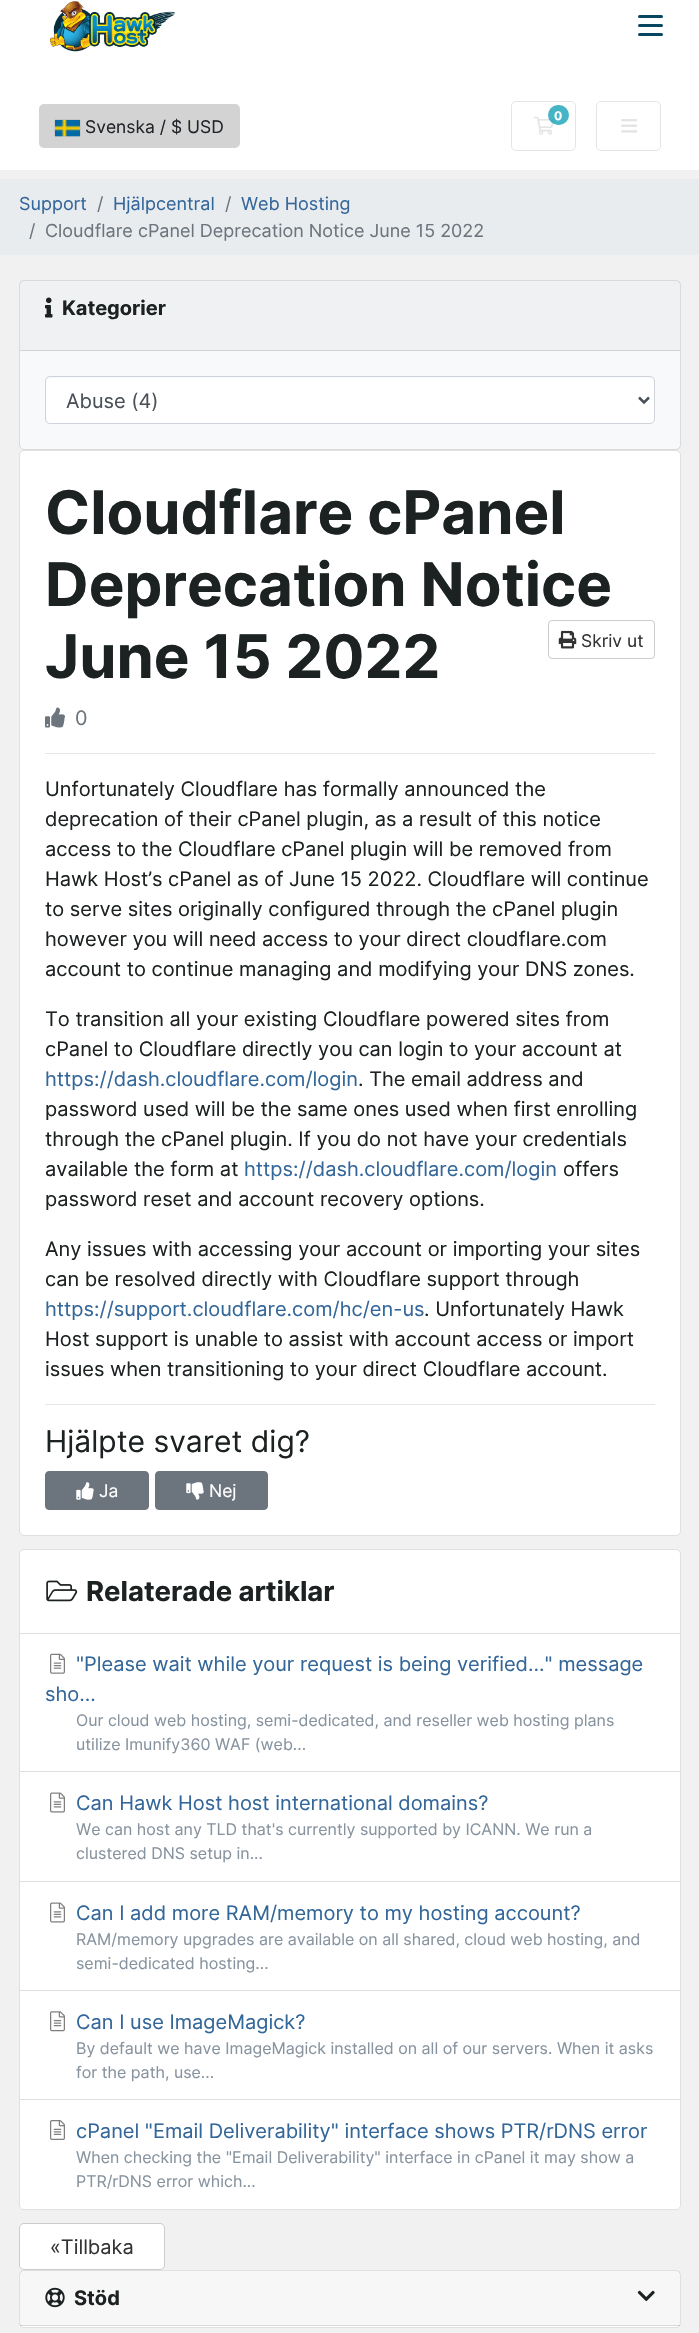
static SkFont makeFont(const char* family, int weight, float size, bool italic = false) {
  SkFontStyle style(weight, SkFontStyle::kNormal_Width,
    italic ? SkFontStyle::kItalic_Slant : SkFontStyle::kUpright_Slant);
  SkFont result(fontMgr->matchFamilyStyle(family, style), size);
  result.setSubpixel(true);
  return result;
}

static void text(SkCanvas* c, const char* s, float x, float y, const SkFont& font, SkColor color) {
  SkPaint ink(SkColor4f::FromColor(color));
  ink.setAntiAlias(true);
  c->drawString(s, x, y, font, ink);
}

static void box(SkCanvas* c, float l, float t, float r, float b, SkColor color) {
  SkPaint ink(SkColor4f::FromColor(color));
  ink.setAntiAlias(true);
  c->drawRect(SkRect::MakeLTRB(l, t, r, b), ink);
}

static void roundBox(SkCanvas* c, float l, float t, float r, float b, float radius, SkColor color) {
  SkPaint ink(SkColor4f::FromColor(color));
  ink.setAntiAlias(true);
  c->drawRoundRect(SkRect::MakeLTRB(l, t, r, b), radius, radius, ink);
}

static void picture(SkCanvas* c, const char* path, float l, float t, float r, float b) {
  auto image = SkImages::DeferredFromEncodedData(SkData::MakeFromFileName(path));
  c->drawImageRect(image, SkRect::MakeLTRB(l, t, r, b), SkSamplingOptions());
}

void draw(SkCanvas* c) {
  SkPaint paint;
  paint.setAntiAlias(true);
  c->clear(0xfff1f1f1);
  box(c, 0, 0, 699, 170, 0xffffffff);
  picture(c, "img_01.png", 50, 1, 175, 52);
  roundBox(c, 638, 33, 663, 36, 1.5f, 0xff064660);
  roundBox(c, 638, 15, 663, 18, 1.5f, 0xff064660);
  roundBox(c, 638, 24, 663, 27, 1.5f, 0xff064660);
  paint.setStyle(SkPaint::kStroke_Style);
  paint.setStrokeWidth(1);
  paint.setColor(0xffe5e5e5);
  c->drawRoundRect(SkRect::MakeLTRB(511.5f, 101.5f, 575.5f, 150.5f), 4.5f, 4.5f, paint);
  picture(c, "img_02.png", 533, 116, 554, 135);
  roundBox(c, 548, 105, 569, 125, 10, 0xcc17a2b8);
  SkFont face1 = makeFont("Inter", 700, 12);
  text(c, "0", 554, 120, face1, 0xffffffff);
  c->drawRoundRect(SkRect::MakeLTRB(596.5f, 101.5f, 660.5f, 150.5f), 4.5f, 4.5f, paint);
  picture(c, "img_03.png", 621, 119, 637, 133);
  roundBox(c, 39, 104, 240, 148, 5, 0xffd3d3d3);
  paint.setStyle(SkPaint::kFill_Style);
  paint.setColor(0xff888888);
  paint.setMaskFilter(SkMaskFilter::MakeBlur(kNormal_SkBlurStyle, 0.5f));
  c->drawRect(SkRect::MakeLTRB(55, 120, 80, 136), paint);
  paint.setMaskFilter(nullptr);
  picture(c, "img_04.png", 55, 120, 80, 137);
  SkFont face2 = makeFont("Inter", 400, 17.5f);
  text(c, "Svenska / $ USD", 85, 133, face2, 0xff212529);
  box(c, 0, 179, 699, 255, 0xffe9ecef);
  SkFont face3 = makeFont("Inter", 400, 18);
  text(c, "Support", 19, 210, face3, 0xff336699);
  text(c, "/", 97, 210, face3, 0xff6c757d);
  text(c, "Hjälpcentral", 113, 210, face3, 0xff336699);
  text(c, "/", 225, 210, face3, 0xff6c757d);
  text(c, "Web Hosting", 241, 210, face3, 0xff336699);
  text(c, "/", 29, 237, face3, 0xff6c757d);
  text(c, "Cloudflare cPanel Deprecation Notice June 15 2022", 45, 237, face3, 0xff6c757d);
  roundBox(c, 19, 280, 681, 450, 5, 0xfff8f9fa);
  paint.setStyle(SkPaint::kStroke_Style);
  paint.setColor(0x1f000000);
  c->drawRoundRect(SkRect::MakeLTRB(19.5f, 280.5f, 680.5f, 449.5f), 4.5f, 4.5f, paint);
  box(c, 20, 281, 680, 350, 0x08000000);
  box(c, 20, 350, 680, 351, 0xffd2d3d4);
  picture(c, "img_05.png", 45, 297, 53, 318);
  SkFont face4 = makeFont("Inter", 700, 20);
  text(c, "Kategorier", 62, 315, face4, 0xff1c2122);
  roundBox(c, 46, 378, 654, 423, 4, 0xffffffff);
  paint.setColor(0xffced4da);
  c->drawRoundRect(SkRect::MakeLTRB(45.5f, 376.5f, 654.5f, 423.5f), 4.5f, 4.5f, paint);
  paint.setStrokeWidth(2.5f);
  paint.setColor(0xff495057);
  c->drawPath(SkPathBuilder().moveTo(639, 397.5f).lineTo(644, 402.5f).lineTo(649, 397.5f).detach(), paint);
  SkFont face5 = makeFont("Inter", 400, 20);
  text(c, "Abuse (4)", 66, 408, face5, 0xff495057);
  roundBox(c, 19, 450, 681, 1536, 5, 0xffffffff);
  paint.setStrokeWidth(1);
  paint.setColor(0x1f000000);
  c->drawRoundRect(SkRect::MakeLTRB(19.5f, 450.5f, 680.5f, 1535.5f), 4.5f, 4.5f, paint);
  SkFont face6 = makeFont("Inter", 700, 60);
  text(c, "Cloudflare cPanel", 45, 534, face6, 0xff1c2122);
  text(c, "Deprecation Notice", 45, 606, face6, 0xff1c2122);
  text(c, "June 15 2022", 45, 678, face6, 0xff1c2122);
  paint.setColor(0xffcccccc);
  c->drawRoundRect(SkRect::MakeLTRB(548.5f, 620.5f, 654.5f, 658.5f), 3.5f, 3.5f, paint);
  picture(c, "img_06.png", 558, 630, 577, 649);
  text(c, "Skriv ut", 581, 647, face2, 0xff333333);
  picture(c, "img_07.png", 45, 707, 65, 728);
  text(c, "0", 75, 725, face5, 0xff6c757d);
  box(c, 45, 753, 655, 754, 0xffe6e6e6);
  text(c, "Unfortunately Cloudflare has formally announced the", 45, 796, face5, 0xff1c2122);
  text(c, "deprecation of their cPanel plugin, as a result of this notice", 45, 826, face5, 0xff1c2122);
  text(c, "access to the Cloudflare cPanel plugin will be removed from", 45, 856, face5, 0xff1c2122);
  text(c, "Hawk Host’s cPanel as of June 15 2022. Cloudflare will continue", 45, 886, face5, 0xff1c2122);
  text(c, "to serve sites originally configured through the cPanel plugin", 45, 916, face5, 0xff1c2122);
  text(c, "however you will need access to your direct cloudflare.com", 45, 946, face5, 0xff1c2122);
  text(c, "account to continue managing and modifying your DNS zones.", 45, 976, face5, 0xff1c2122);
  text(c, "To transition all your existing Cloudflare powered sites from", 45, 1026, face5, 0xff1c2122);
  text(c, "cPanel to Cloudflare directly you can login to your account at", 45, 1056, face5, 0xff1c2122);
  text(c, "https://dash.cloudflare.com/login", 45, 1086, face5, 0xff336699);
  text(c, ". The email address and", 358, 1086, face5, 0xff1c2122);
  text(c, "password used will be the same ones used when first enrolling", 45, 1116, face5, 0xff1c2122);
  text(c, "through the cPanel plugin. If you do not have your credentials", 45, 1146, face5, 0xff1c2122);
  text(c, "available the form at", 45, 1176, face5, 0xff1c2122);
  text(c, "https://dash.cloudflare.com/login", 244, 1176, face5, 0xff336699);
  text(c, "offers", 563, 1176, face5, 0xff1c2122);
  text(c, "password reset and account recovery options.", 45, 1206, face5, 0xff1c2122);
  text(c, "Any issues with accessing your account or importing your sites", 45, 1256, face5, 0xff1c2122);
  text(c, "can be resolved directly with Cloudflare support through", 45, 1286, face5, 0xff1c2122);
  text(c, "https://support.cloudflare.com/hc/en-us", 45, 1316, face5, 0xff336699);
  text(c, ". Unfortunately Hawk", 424, 1316, face5, 0xff1c2122);
  text(c, "Host support is unable to assist with account access or import", 45, 1346, face5, 0xff1c2122);
  text(c, "issues when transitioning to your direct Cloudflare account.", 45, 1376, face5, 0xff1c2122);
  box(c, 45, 1404, 655, 1405, 0xffe6e6e6);
  SkFont face7 = makeFont("Inter", 400, 30);
  text(c, "Hjälpte svaret dig?", 45, 1452, face7, 0xff1c2122);
  paint.setStyle(SkPaint::kFill_Style);
  paint.setColor(0xff6c757d);
  c->drawRoundRect(SkRect::MakeLTRB(45.5f, 1471.5f, 148.5f, 1509.5f), 3.5f, 3.5f, paint);
  paint.setStyle(SkPaint::kStroke_Style);
  c->drawRoundRect(SkRect::MakeLTRB(45.5f, 1471.5f, 148.5f, 1509.5f), 3.5f, 3.5f, paint);
  picture(c, "img_08.png", 76, 1482, 94, 1500);
  text(c, "Ja", 99, 1497, face2, 0xffffffff);
  paint.setStyle(SkPaint::kFill_Style);
  c->drawRoundRect(SkRect::MakeLTRB(155.5f, 1471.5f, 267.5f, 1509.5f), 3.5f, 3.5f, paint);
  paint.setStyle(SkPaint::kStroke_Style);
  c->drawRoundRect(SkRect::MakeLTRB(155.5f, 1471.5f, 267.5f, 1509.5f), 3.5f, 3.5f, paint);
  picture(c, "img_09.png", 186, 1482, 204, 1500);
  text(c, "Nej", 209, 1497, face2, 0xffffffff);
  roundBox(c, 19, 1549, 681, 2210, 5, 0xffffffff);
  paint.setColor(0x1f000000);
  c->drawRoundRect(SkRect::MakeLTRB(19.5f, 1549.5f, 680.5f, 2209.5f), 4.5f, 4.5f, paint);
  picture(c, "img_10.png", 46, 1580, 78, 1602);
  SkFont face8 = makeFont("Inter", 700, 27.5f);
  text(c, "Relaterade artiklar", 86, 1601, face8, 0xff1c2122);
  box(c, 20, 1633, 680, 1634, 0xffdfdfdf);
  box(c, 20, 1771, 680, 1772, 0xffdfdfdf);
  picture(c, "img_11.png", 50, 1653, 65, 1674);
  text(c, "\"Please wait while your request is being verified...\" message", 76, 1671, face5, 0xff336699);
  text(c, "sho...", 45, 1701, face5, 0xff336699);
  SkFont face9 = makeFont("Inter", 400, 16);
  text(c, "Our cloud web hosting, semi-dedicated, and reseller web hosting plans", 76, 1726, face9, 0xff87939f);
  text(c, "utilize Imunify360 WAF (web...", 76, 1750, face9, 0xff87939f);
  box(c, 20, 1881, 680, 1882, 0xffdfdfdf);
  picture(c, "img_12.png", 50, 1792, 65, 1813);
  text(c, "Can Hawk Host host international domains?", 76, 1810, face5, 0xff336699);
  text(c, "We can host any TLD that's currently supported by ICANN. We run a", 76, 1835, face9, 0xff87939f);
  text(c, "clustered DNS setup in...", 76, 1859, face9, 0xff87939f);
  box(c, 20, 1990, 680, 1991, 0xffdfdfdf);
  picture(c, "img_12.png", 50, 1902, 65, 1923);
  text(c, "Can I add more RAM/memory to my hosting account?", 76, 1920, face5, 0xff336699);
  text(c, "RAM/memory upgrades are available on all shared, cloud web hosting, and", 76, 1945, face9, 0xff87939f);
  text(c, "semi-dedicated hosting...", 76, 1969, face9, 0xff87939f);
  box(c, 20, 2099, 680, 2100, 0xffdfdfdf);
  picture(c, "img_13.png", 50, 2011, 65, 2032);
  text(c, "Can I use ImageMagick?", 76, 2029, face5, 0xff336699);
  text(c, "By default we have ImageMagick installed on all of our servers. When it asks", 76, 2054, face9, 0xff87939f);
  text(c, "for the path, use...", 76, 2078, face9, 0xff87939f);
  paint.setStyle(SkPaint::kFill_Style);
  paint.setColor(0xffffffff);
  c->drawPath(SkPathBuilder().moveTo(20, 2100).lineTo(680, 2100).lineTo(680, 2205).cubicTo(680, 2207, 678, 2209, 676, 2209).lineTo(24, 2209).cubicTo(22, 2209, 20, 2207, 20, 2205).close().detach(), paint);
  picture(c, "img_14.png", 50, 2120, 65, 2140);
  text(c, "cPanel \"Email Deliverability\" interface shows PTR/rDNS error", 76, 2138, face5, 0xff336699);
  text(c, "When checking the \"Email Deliverability\" interface in cPanel it may show a", 76, 2163, face9, 0xff87939f);
  text(c, "PTR/rDNS error which...", 76, 2187, face9, 0xff87939f);
  c->drawRoundRect(SkRect::MakeLTRB(19.5f, 2223.5f, 164.5f, 2269.5f), 4.5f, 4.5f, paint);
  paint.setStyle(SkPaint::kStroke_Style);
  paint.setColor(0xffcccccc);
  c->drawRoundRect(SkRect::MakeLTRB(19.5f, 2223.5f, 164.5f, 2269.5f), 4.5f, 4.5f, paint);
  text(c, "«Tillbaka", 50, 2254, face5, 0xff333333);
  roundBox(c, 19, 2270, 681, 2328, 5, 0xffffffff);
  paint.setColor(0x1f000000);
  c->drawRoundRect(SkRect::MakeLTRB(19.5f, 2270.5f, 680.5f, 2327.5f), 4.5f, 4.5f, paint);
  box(c, 20, 2271, 680, 2326, 0x08000000);
  box(c, 20, 2325, 680, 2326, 0x1f000000);
  picture(c, "img_15.png", 45, 2287, 65, 2308);
  text(c, "Stöd", 74, 2305, face4, 0xff1c2122);
  picture(c, "img_16.png", 637, 2290, 655, 2302);
}
